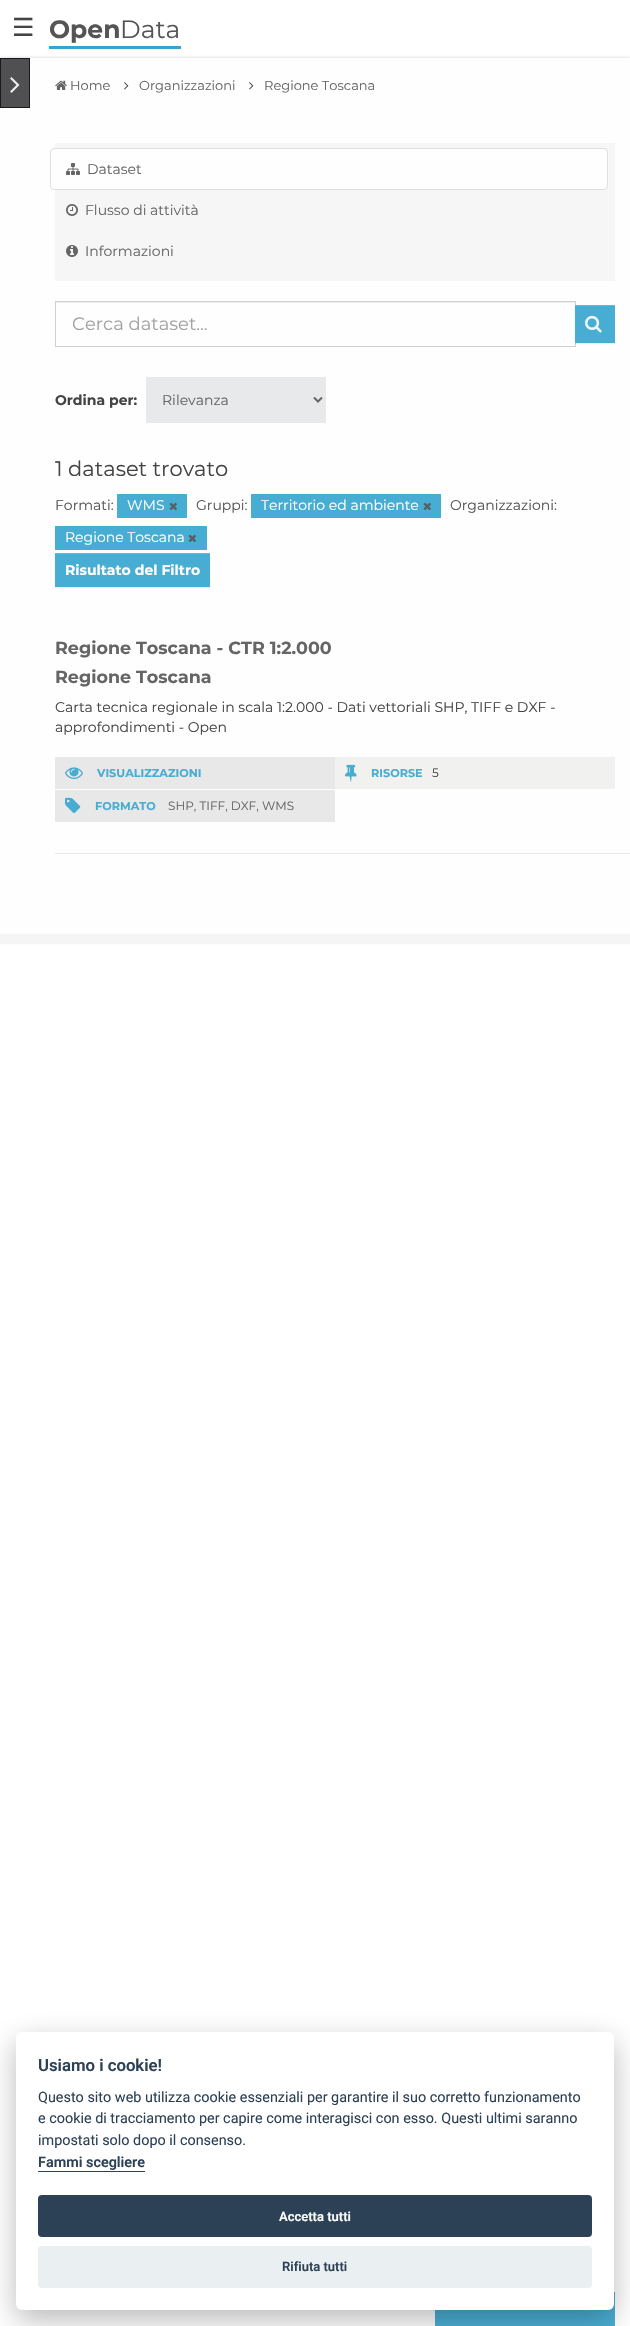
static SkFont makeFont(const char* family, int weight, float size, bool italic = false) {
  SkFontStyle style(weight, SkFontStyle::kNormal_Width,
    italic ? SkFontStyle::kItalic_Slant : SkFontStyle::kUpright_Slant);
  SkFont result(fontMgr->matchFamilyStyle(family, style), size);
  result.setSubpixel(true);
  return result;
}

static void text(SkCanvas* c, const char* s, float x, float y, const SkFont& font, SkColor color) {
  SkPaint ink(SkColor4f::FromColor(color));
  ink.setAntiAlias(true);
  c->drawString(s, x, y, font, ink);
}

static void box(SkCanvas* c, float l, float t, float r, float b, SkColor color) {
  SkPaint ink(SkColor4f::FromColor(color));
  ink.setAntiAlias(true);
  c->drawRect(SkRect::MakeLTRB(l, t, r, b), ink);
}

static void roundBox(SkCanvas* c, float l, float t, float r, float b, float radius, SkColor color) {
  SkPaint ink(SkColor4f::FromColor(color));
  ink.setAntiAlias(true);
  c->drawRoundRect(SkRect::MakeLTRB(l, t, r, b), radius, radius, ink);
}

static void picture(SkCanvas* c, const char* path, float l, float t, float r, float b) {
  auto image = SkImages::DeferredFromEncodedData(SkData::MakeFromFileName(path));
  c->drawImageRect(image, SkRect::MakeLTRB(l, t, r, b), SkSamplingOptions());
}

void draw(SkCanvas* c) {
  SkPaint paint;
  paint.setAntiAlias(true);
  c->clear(0xffffffff);
  SkFont face1 = makeFont("DejaVu Sans", 400, 25);
  text(c, "☰", 12, 36, face1, 0xff444444);
  SkFont face2 = makeFont("Montserrat", 100, 25);
  text(c, "Open", 49, 38, face2, 0xff555555);
  box(c, 49, 46, 181, 49, 0xff35a5ce);
  SkFont face3 = makeFont("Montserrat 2", 100, 25);
  text(c, "Data", 120, 38, face3, 0xff555555);
  paint.setColor(0x1a000000);
  paint.setMaskFilter(SkMaskFilter::MakeBlur(kNormal_SkBlurStyle, 1));
  c->drawRect(SkRect::MakeLTRB(0, 57, 630, 943), paint);
  paint.setMaskFilter(nullptr);
  box(c, 0, 934, 630, 944, 0xfff5f5f5);
  box(c, 0, 58, 630, 934, 0xfffefefe);
  paint.setColor(0xff504f52);
  c->drawRect(SkRect::MakeLTRB(0.5f, 58.5f, 29.5f, 107.5f), paint);
  paint.setStyle(SkPaint::kStroke_Style);
  paint.setStrokeWidth(1);
  paint.setColor(0xff191919);
  c->drawRect(SkRect::MakeLTRB(0.5f, 58.5f, 29.5f, 107.5f), paint);
  picture(c, "img_01.png", 10, 77, 20, 93);
  picture(c, "img_02.png", 55, 80, 67, 90);
  SkFont face4 = makeFont("Montserrat 2", 100, 13);
  text(c, "Home", 70, 90, face4, 0xff656565);
  picture(c, "img_03.png", 124, 82, 129, 90);
  text(c, "Organizzazioni", 139, 90, face4, 0xff656565);
  picture(c, "img_03.png", 249, 82, 254, 90);
  text(c, "Regione Toscana", 264, 90, face4, 0xff656565);
  box(c, 55, 143, 615, 281, 0xfff6f6f6);
  paint.setStyle(SkPaint::kFill_Style);
  paint.setColor(0xfffefefe);
  c->drawRoundRect(SkRect::MakeLTRB(50.5f, 148.5f, 607.5f, 189.5f), 3.5f, 3.5f, paint);
  paint.setStyle(SkPaint::kStroke_Style);
  paint.setColor(0xffdfdfdf);
  c->drawRoundRect(SkRect::MakeLTRB(50.5f, 148.5f, 607.5f, 189.5f), 3.5f, 3.5f, paint);
  picture(c, "img_04.png", 66, 163, 80, 175);
  SkFont face5 = makeFont("Montserrat 2", 100, 14);
  text(c, "Dataset", 87, 174, face5, 0xff656565);
  picture(c, "img_05.png", 66, 204, 78, 216);
  text(c, "Flusso di attività", 85, 215, face5, 0xff656565);
  picture(c, "img_06.png", 66, 245, 78, 257);
  text(c, "Informazioni", 85, 256, face5, 0xff656565);
  box(c, 56, 302, 575, 303, 0xffededed);
  paint.setColor(0xffd0d0d0);
  c->drawRect(SkRect::MakeLTRB(55.5f, 301.5f, 575.5f, 346.5f), paint);
  SkFont face6 = makeFont("Montserrat 2", 100, 18);
  text(c, "Cerca dataset...", 72, 330, face6, 0xffa2a2a2);
  paint.setStyle(SkPaint::kFill_Style);
  paint.setColor(0x12191919);
  paint.setMaskFilter(SkMaskFilter::MakeBlur(kNormal_SkBlurStyle, 0.5f));
  c->drawRect(SkRect::MakeLTRB(575, 306, 615, 344), paint);
  paint.setMaskFilter(nullptr);
  box(c, 575, 306, 615, 343, 0xff48add2);
  box(c, 575, 305, 615, 306, 0xff63b9d9);
  picture(c, "img_07.png", 585, 315, 602, 333);
  SkFont face7 = makeFont("Montserrat", 100, 14);
  text(c, "Ordina per:", 55, 405, face7, 0xff444444);
  box(c, 146, 377, 326, 423, 0xffe7e9ea);
  paint.setStyle(SkPaint::kStroke_Style);
  paint.setStrokeWidth(2);
  paint.setColor(0xff656565);
  c->drawPath(SkPathBuilder().moveTo(314, 397.5f).lineTo(318, 401.5f).lineTo(322, 397.5f).detach(), paint);
  text(c, "Rilevanza", 162, 405, face5, 0xff656565);
  SkFont face8 = makeFont("Montserrat 2", 100, 21);
  text(c, "1 dataset trovato", 55, 476, face8, 0xff444444);
  text(c, "Formati:", 55, 510, face5, 0xff555555);
  box(c, 117, 494, 187, 518, 0xff48add2);
  text(c, "WMS", 127, 510, face5, 0xfffefefe);
  picture(c, "img_08.png", 169, 502, 177, 510);
  text(c, "Gruppi:", 196, 510, face5, 0xff555555);
  box(c, 251, 494, 441, 518, 0xff48add2);
  text(c, "Territorio ed ambiente", 261, 510, face5, 0xfffefefe);
  picture(c, "img_08.png", 423, 502, 431, 510);
  text(c, "Organizzazioni:", 450, 510, face5, 0xff555555);
  box(c, 55, 526, 207, 550, 0xff48add2);
  text(c, "Regione Toscana", 65, 542, face5, 0xfffefefe);
  picture(c, "img_08.png", 188, 534, 196, 542);
  paint.setStyle(SkPaint::kFill_Style);
  paint.setColor(0x12191919);
  paint.setMaskFilter(SkMaskFilter::MakeBlur(kNormal_SkBlurStyle, 0.5f));
  c->drawRect(SkRect::MakeLTRB(55, 554, 210, 588), paint);
  paint.setMaskFilter(nullptr);
  box(c, 55, 554, 210, 587, 0xff48add2);
  box(c, 55, 553, 210, 554, 0xff63b9d9);
  text(c, "Risultato del Filtro", 65, 575, face7, 0xfffefefe);
  box(c, 55, 853, 630, 854, 0xffe8e8e8);
  SkFont face9 = makeFont("Montserrat", 100, 17.5f);
  text(c, "Regione Toscana - CTR 1:2.000", 55, 654, face9, 0xff656565);
  text(c, "Regione Toscana", 55, 683, face9, 0xff656565);
  text(c, "Carta tecnica regionale in scala 1:2.000 - Dati vettoriali SHP, TIFF e DXF -", 55, 712, face5, 0xff444444);
  text(c, "approfondimenti - Open", 55, 732, face5, 0xff444444);
  box(c, 55, 757, 335, 789, 0xffe8e8e8);
  picture(c, "img_09.png", 65, 767, 83, 779);
  SkFont face10 = makeFont("Montserrat", 100, 11.25f);
  text(c, "VISUALIZZAZIONI", 97, 777, face10, 0xff48add2);
  box(c, 335, 757, 615, 789, 0xfff1f1f0);
  picture(c, "img_10.png", 345, 764, 357, 782);
  text(c, "RISORSE", 371, 777, face10, 0xff48add2);
  SkFont face11 = makeFont("Montserrat 2", 100, 12);
  text(c, "5", 432, 777, face11, 0xff444444);
  box(c, 55, 790, 335, 822, 0xffe8e8e8);
  picture(c, "img_11.png", 65, 797, 81, 813);
  text(c, "FORMATO", 95, 810, face10, 0xff48add2);
  text(c, "SHP, TIFF, DXF, WMS", 168, 810, face11, 0xff656565);
  box(c, 435, 2292, 615, 2326, 0xff49aed3);
  paint.setColor(0x47020203);
  paint.setMaskFilter(SkMaskFilter::MakeBlur(kNormal_SkBlurStyle, 15));
  c->drawRoundRect(SkRect::MakeLTRB(16, 2042, 614, 2320), 6, 6, paint);
  paint.setMaskFilter(nullptr);
  roundBox(c, 16, 2032, 614, 2310, 6, 0xffffffff);
  SkFont face12 = makeFont("Roboto", 600, 16.75f);
  text(c, "Usiamo i cookie!", 38, 2071, face12, 0xff2d4156);
  SkFont face13 = makeFont("Roboto", 400, 14.4f);
  text(c, "Questo sito web utilizza cookie essenziali per garantire il suo corretto funzionamento", 38, 2102, face13, 0xff2d4156);
  text(c, "e cookie di tracciamento per capire come interagisci con esso. Questi ultimi saranno", 38, 2123, face13, 0xff2d4156);
  text(c, "impostati solo dopo il consenso.", 38, 2145, face13, 0xff2d4156);
  SkFont face14 = makeFont("Roboto", 600, 14.4f);
  text(c, "Fammi scegliere", 38, 2167, face14, 0xff2d4156);
  box(c, 38, 2171, 145, 2172, 0xff2d4156);
  roundBox(c, 38, 2195, 592, 2237, 4, 0xff2d4156);
  SkFont face15 = makeFont("Roboto", 600, 13);
  text(c, "Accetta tutti", 279, 2221, face15, 0xfffefefe);
  roundBox(c, 38, 2246, 592, 2288, 4, 0xffeaeff2);
  text(c, "Rifiuta tutti", 282, 2271, face15, 0xff2d4156);
}
